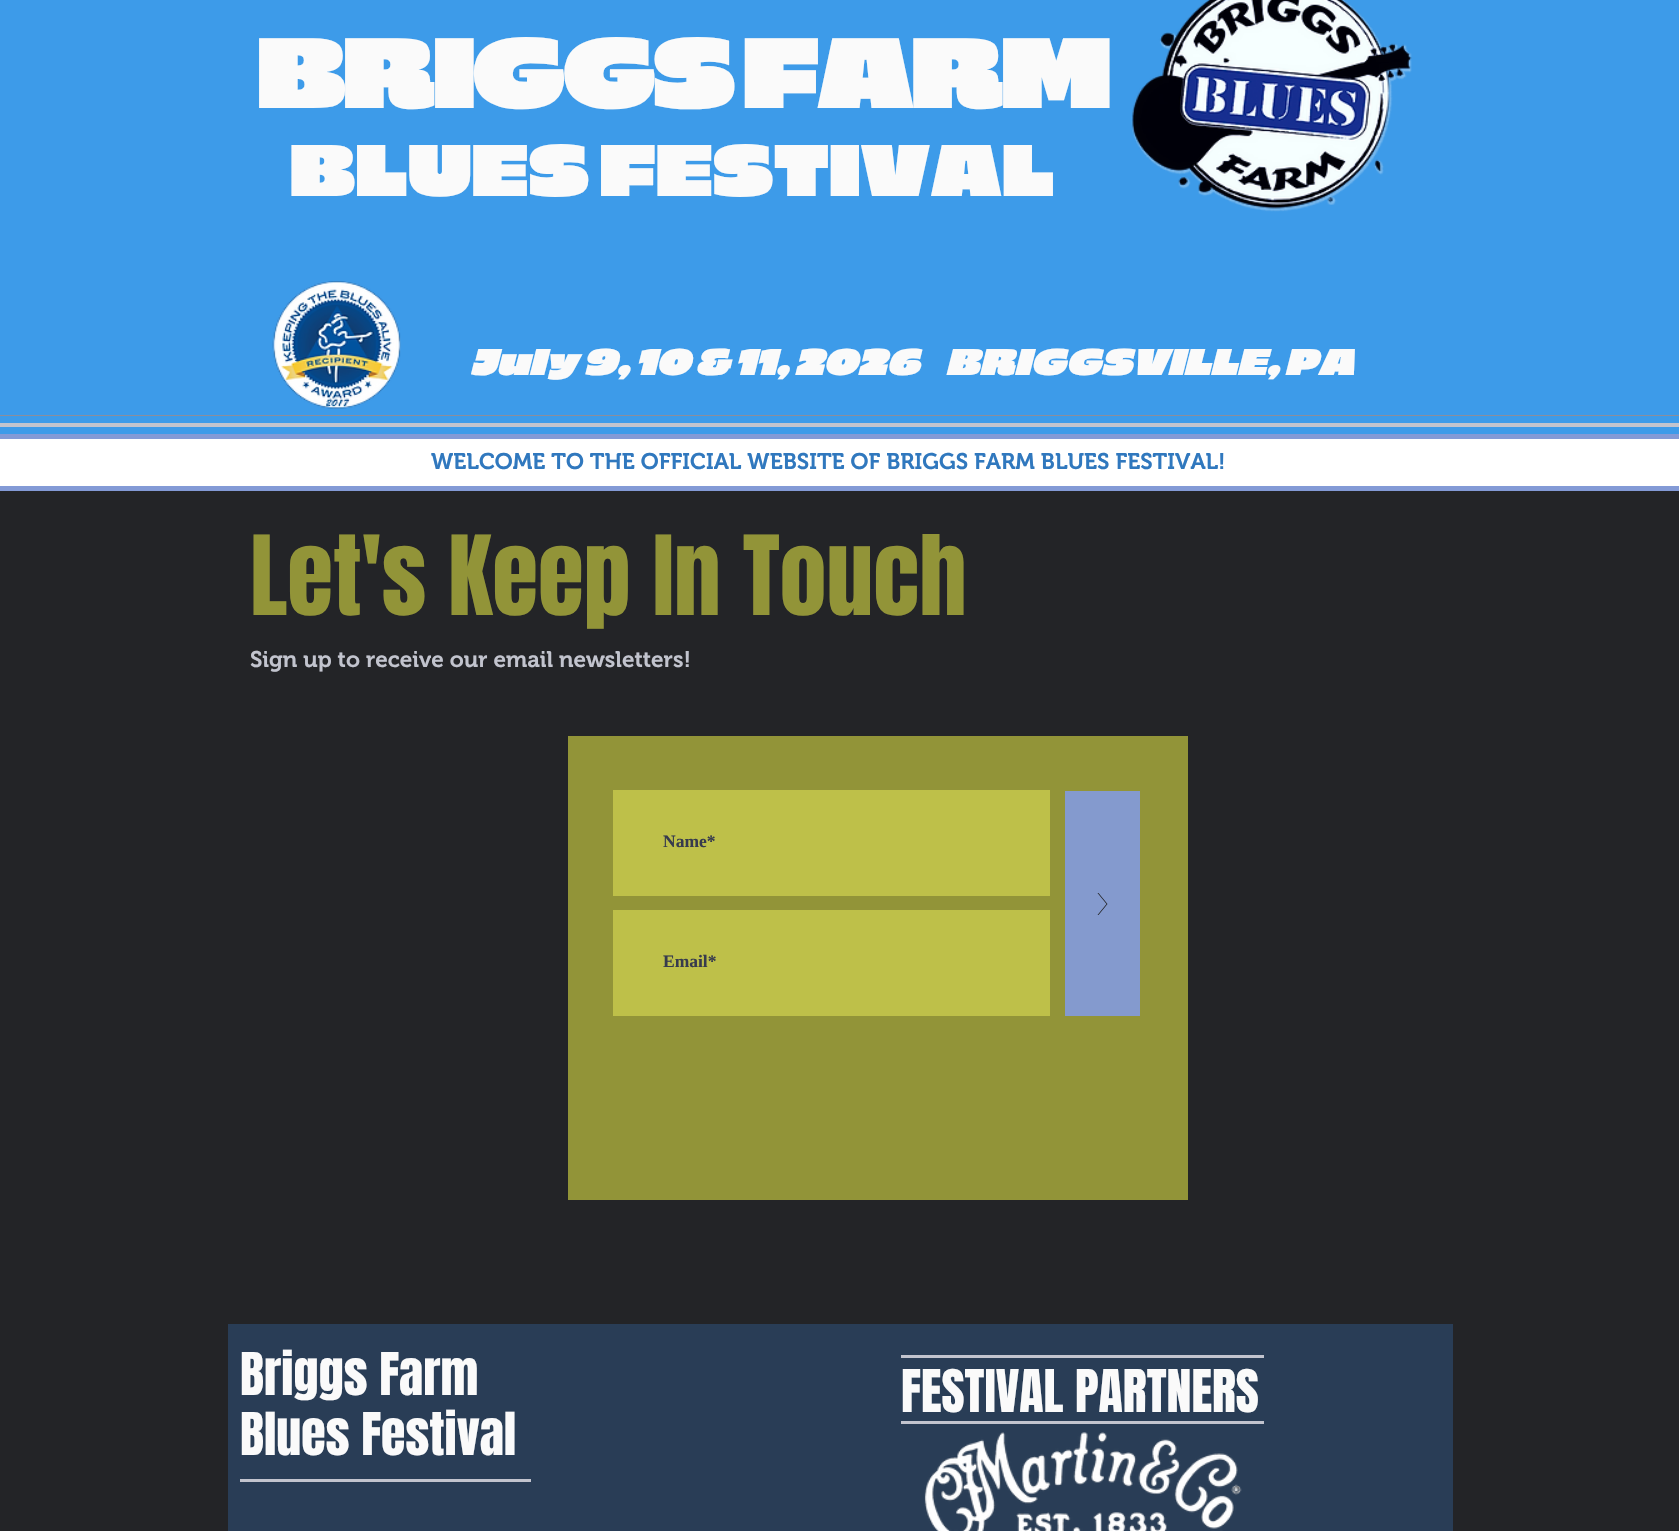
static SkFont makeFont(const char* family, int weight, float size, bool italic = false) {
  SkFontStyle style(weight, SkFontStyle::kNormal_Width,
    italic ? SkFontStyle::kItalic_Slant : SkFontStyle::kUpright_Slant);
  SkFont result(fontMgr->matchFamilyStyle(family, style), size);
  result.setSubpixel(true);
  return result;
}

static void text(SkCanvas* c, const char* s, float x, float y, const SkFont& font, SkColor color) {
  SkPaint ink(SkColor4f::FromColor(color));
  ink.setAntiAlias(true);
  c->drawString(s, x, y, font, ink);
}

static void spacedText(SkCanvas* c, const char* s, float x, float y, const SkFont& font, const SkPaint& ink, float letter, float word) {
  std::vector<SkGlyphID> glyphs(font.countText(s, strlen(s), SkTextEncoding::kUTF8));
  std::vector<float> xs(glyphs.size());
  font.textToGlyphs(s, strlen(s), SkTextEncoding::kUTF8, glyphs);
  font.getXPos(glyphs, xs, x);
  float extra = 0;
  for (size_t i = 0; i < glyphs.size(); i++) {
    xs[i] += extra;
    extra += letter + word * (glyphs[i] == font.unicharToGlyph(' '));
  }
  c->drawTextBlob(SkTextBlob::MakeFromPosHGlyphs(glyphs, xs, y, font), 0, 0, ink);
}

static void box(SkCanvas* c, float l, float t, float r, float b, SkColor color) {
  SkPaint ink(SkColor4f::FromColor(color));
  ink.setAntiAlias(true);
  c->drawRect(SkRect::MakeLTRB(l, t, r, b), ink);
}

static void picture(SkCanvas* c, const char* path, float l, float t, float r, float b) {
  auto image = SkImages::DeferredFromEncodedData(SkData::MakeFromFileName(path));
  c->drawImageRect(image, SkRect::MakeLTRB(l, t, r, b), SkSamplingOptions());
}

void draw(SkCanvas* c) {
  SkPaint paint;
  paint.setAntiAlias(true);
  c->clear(0xff232427);
  box(c, 0, 0, 1679, 434, 0xff3d9be9);
  box(c, 0, 423, 1679, 427, 0xffc2c4ce);
  box(c, 0, 415, 1679, 416, 0xff8a8e9c);
  SkFont face1 = makeFont("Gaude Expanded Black", 900, 70);
  paint.setColor(0xfffafafa);
  spacedText(c, "BRIGGS FARM", 257, 108, face1, paint, -3.5f, 0);
  SkFont face2 = makeFont("Gaude Expanded Black", 900, 51.25f);
  text(c, "BLUES FESTIVAL", 290, 196, face2, 0xfffafafa);
  picture(c, "img_01.png", 1131, 0, 1412, 212);
  picture(c, "img_02.png", 272, 281, 401, 409);
  SkFont face3 = makeFont("Gaude Expanded Black", 900, 26.25f, true);
  text(c, "July 9, 10 & 11, 2026     BRIGGSVILLE, PA", 470, 375, face3, 0xfffafafa);
  paint.setColor(0xffffffff);
  c->drawRect(SkRect::MakeLTRB(-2.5f, 436.5f, 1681.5f, 488.5f), paint);
  paint.setStyle(SkPaint::kStroke_Style);
  paint.setStrokeWidth(5);
  paint.setColor(0xff839ad6);
  c->drawRect(SkRect::MakeLTRB(-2.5f, 436.5f, 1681.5f, 488.5f), paint);
  SkFont face4 = makeFont("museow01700", 600, 22.5f);
  text(c, "WELCOME TO THE OFFICIAL WEBSITE OF BRIGGS FARM BLUES FESTIVAL!", 431, 469, face4, 0xff3078be);
  SkFont face5 = makeFont("Anton", 400, 93.75f);
  text(c, "Let's Keep In Touch", 250, 615, face5, 0xff929438);
  text(c, "Sign up to receive our email newsletters!", 250, 667, face4, 0xffc2c4ce);
  box(c, 568, 736, 1188, 1200, 0xff929438);
  box(c, 613, 790, 1050, 896, 0xffbec049);
  SkFont face6 = makeFont("Liberation Serif", 700, 17.5f);
  text(c, "Name*", 663, 847, face6, 0xff373b4d);
  box(c, 1065, 791, 1140, 1016, 0xff849ace);
  paint.setStyle(SkPaint::kFill_Style);
  paint.setColor(0xff232427);
  c->drawPath(SkPathBuilder().moveTo(1107.5f, 904).lineTo(1098.5f, 915).lineTo(1097.5f, 915).lineTo(1106.5f, 904).lineTo(1097.5f, 893).lineTo(1098.5f, 893).close().detach(), paint);
  box(c, 613, 910, 1050, 1016, 0xffbec049);
  text(c, "Email*", 663, 967, face6, 0xff373b4d);
  box(c, 228, 1324, 1453, 1531, 0xff293d56);
  SkFont face7 = makeFont("Anton", 400, 50);
  text(c, "Briggs Farm", 240, 1395, face7, 0xfffafafa);
  text(c, "Blues Festival", 240, 1455, face7, 0xfffafafa);
  box(c, 901, 1355, 1264, 1358, 0xffc2c4ce);
  text(c, "FESTIVAL PARTNERS", 901, 1412, face7, 0xfffafafa);
  box(c, 901, 1421, 1264, 1424, 0xffc2c4ce);
  box(c, 240, 1479, 531, 1482, 0xffc2c4ce);
  picture(c, "img_03.png", 924, 1432, 1242, 1531);
}
